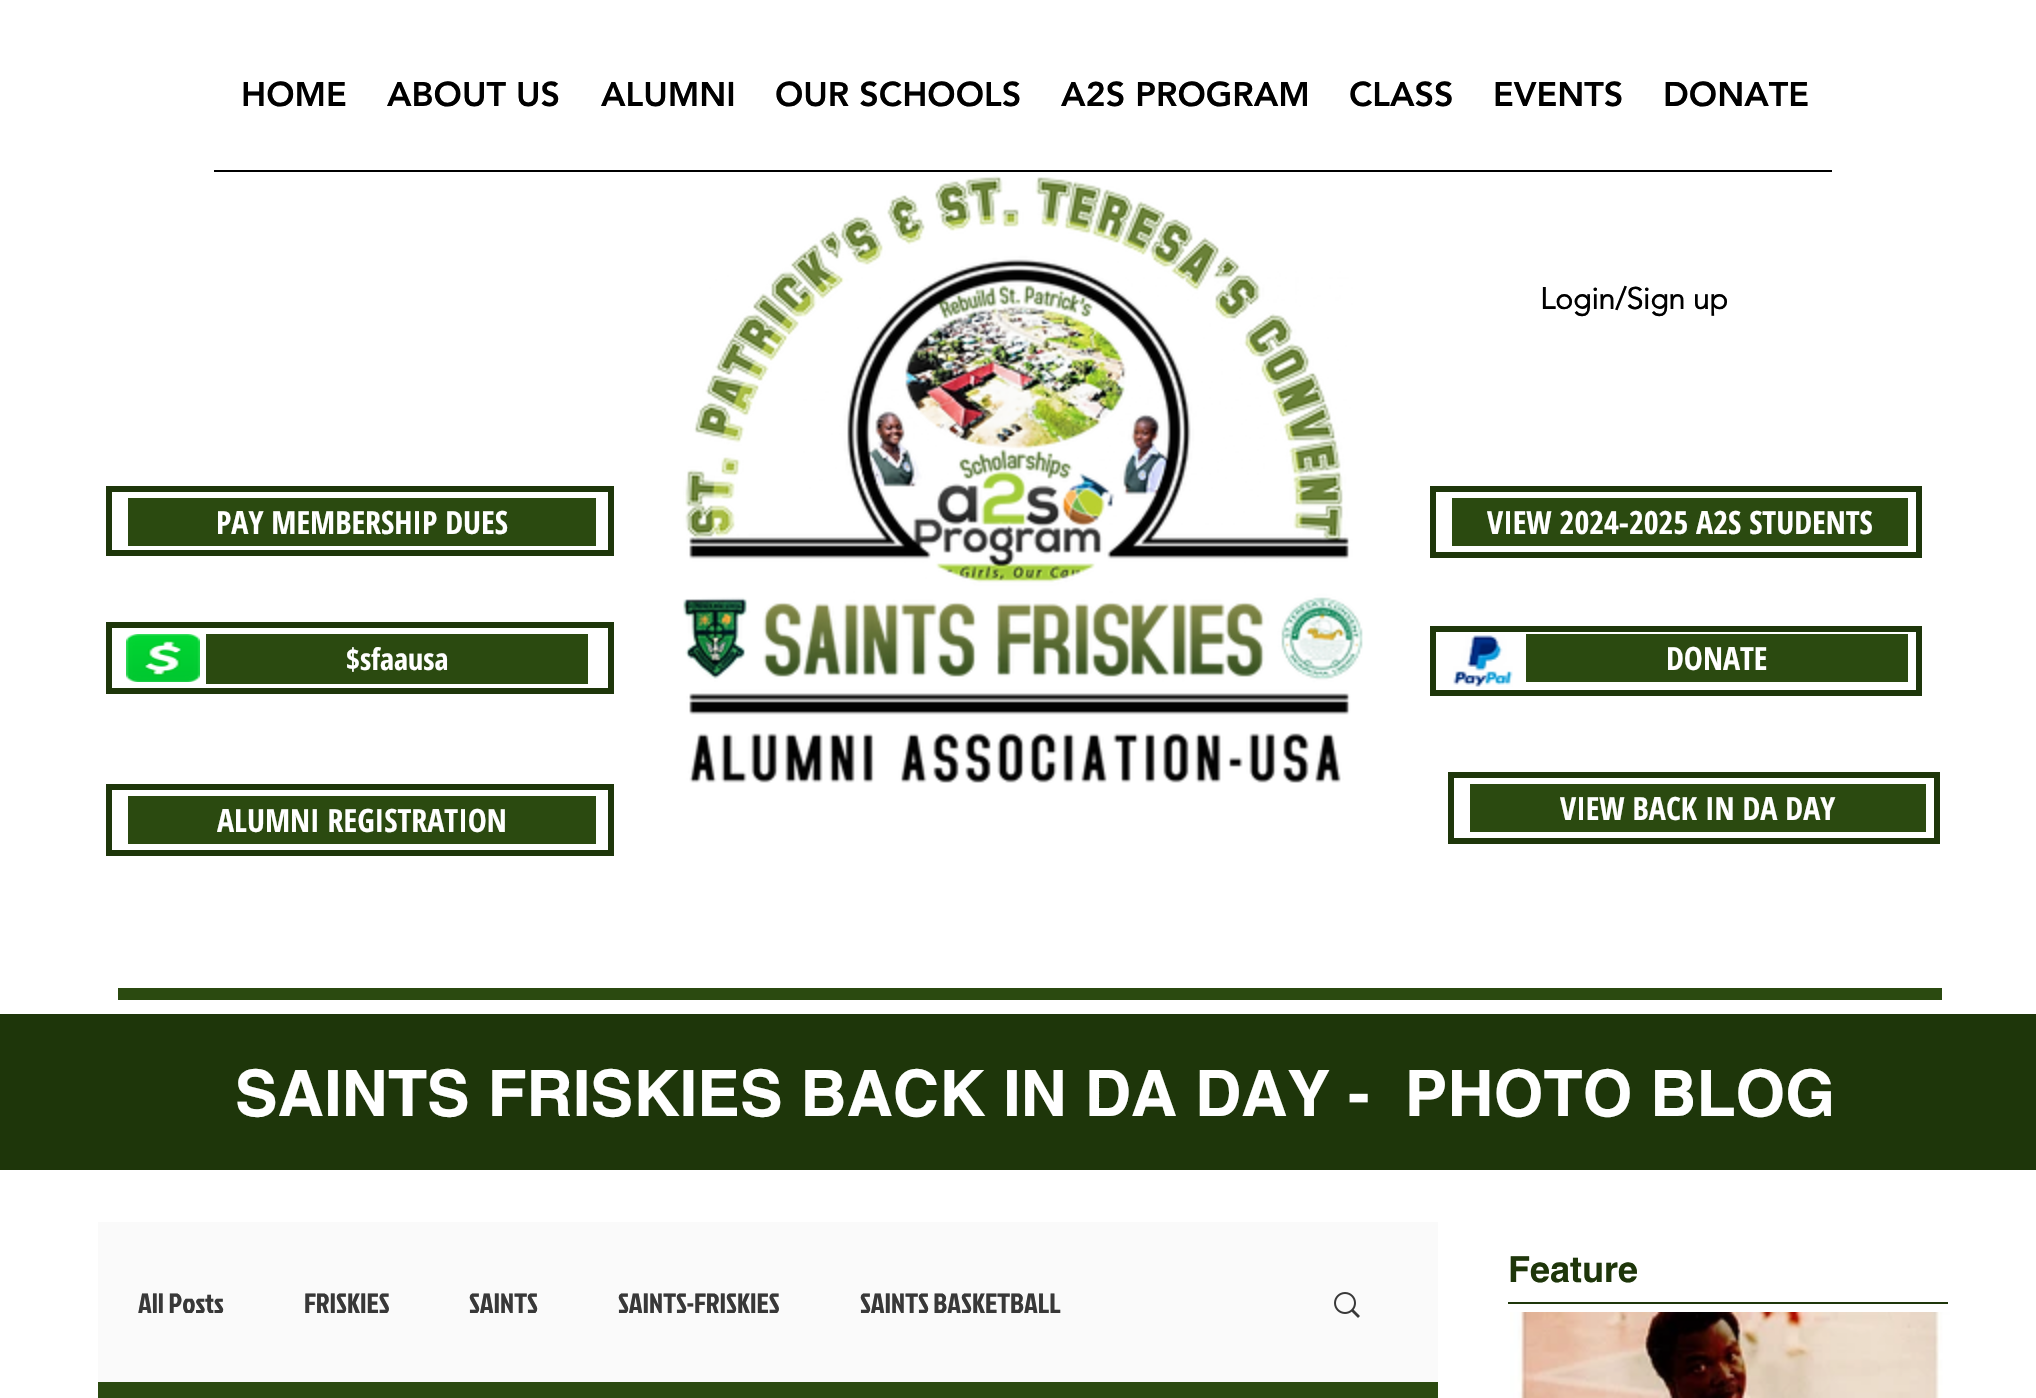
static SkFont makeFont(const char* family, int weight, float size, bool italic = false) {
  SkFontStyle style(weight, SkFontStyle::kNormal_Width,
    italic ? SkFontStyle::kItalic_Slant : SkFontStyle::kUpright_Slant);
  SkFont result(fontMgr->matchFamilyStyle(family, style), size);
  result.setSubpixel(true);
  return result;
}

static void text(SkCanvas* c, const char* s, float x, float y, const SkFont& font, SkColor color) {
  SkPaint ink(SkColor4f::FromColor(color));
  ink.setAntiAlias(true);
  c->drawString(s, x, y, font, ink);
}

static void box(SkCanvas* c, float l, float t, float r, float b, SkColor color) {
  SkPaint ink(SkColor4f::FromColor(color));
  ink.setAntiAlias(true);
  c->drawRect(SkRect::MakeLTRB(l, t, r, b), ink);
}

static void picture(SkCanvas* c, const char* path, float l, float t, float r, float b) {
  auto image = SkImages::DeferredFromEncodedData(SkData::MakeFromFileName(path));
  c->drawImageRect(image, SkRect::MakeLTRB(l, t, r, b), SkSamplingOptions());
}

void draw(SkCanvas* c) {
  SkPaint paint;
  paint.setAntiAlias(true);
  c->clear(0xffffffff);
  SkFont face1 = makeFont("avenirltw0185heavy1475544", 900, 34);
  text(c, "HOME", 241, 106, face1, 0xff000000);
  text(c, "ABOUT US", 387, 106, face1, 0xff000000);
  text(c, "ALUMNI", 601, 106, face1, 0xff000000);
  text(c, "OUR SCHOOLS", 775, 106, face1, 0xff000000);
  text(c, "A2S PROGRAM", 1061, 106, face1, 0xff000000);
  text(c, "CLASS", 1349, 106, face1, 0xff000000);
  text(c, "EVENTS", 1493, 106, face1, 0xff000000);
  text(c, "DONATE", 1663, 106, face1, 0xff000000);
  box(c, 214, 170, 1832, 172, 0xff000000);
  picture(c, "img_01.png", 683, 175, 1363, 783);
  SkFont face2 = makeFont("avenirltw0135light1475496", 700, 30);
  text(c, "Login/Sign up", 1540, 309, face2, 0xff000000);
  paint.setStyle(SkPaint::kStroke_Style);
  paint.setStrokeWidth(6);
  paint.setColor(0xff1e360a);
  c->drawRect(SkRect::MakeLTRB(109, 489, 611, 553), paint);
  box(c, 128, 498, 596, 546, 0xff2b4a10);
  SkFont face3 = makeFont("Open Sans Condensed", 700, 32);
  text(c, "PAY MEMBERSHIP DUES", 216, 534, face3, 0xffffffff);
  c->drawRect(SkRect::MakeLTRB(1433, 489, 1919, 555), paint);
  box(c, 1452, 498, 1908, 546, 0xff2b4a10);
  text(c, "VIEW 2024-2025 A2S STUDENTS", 1487, 534, face3, 0xffffffff);
  c->drawRect(SkRect::MakeLTRB(109, 625, 611, 691), paint);
  picture(c, "img_02.png", 126, 634, 200, 682);
  box(c, 206, 634, 588, 684, 0xff2b4a10);
  SkFont face4 = makeFont("Open Sans Condensed", 700, 30);
  text(c, "$sfaausa", 346, 670, face4, 0xffffffff);
  c->drawRect(SkRect::MakeLTRB(1433, 629, 1919, 693), paint);
  picture(c, "img_03.png", 1453, 635, 1513, 687);
  box(c, 1526, 634, 1908, 682, 0xff2b4a10);
  text(c, "DONATE", 1666, 670, face3, 0xffffffff);
  c->drawRect(SkRect::MakeLTRB(109, 787, 611, 853), paint);
  box(c, 128, 796, 596, 844, 0xff2b4a10);
  text(c, "ALUMNI REGISTRATION", 217, 832, face3, 0xffffffff);
  c->drawRect(SkRect::MakeLTRB(1451, 775, 1937, 841), paint);
  box(c, 1470, 784, 1926, 832, 0xff2b4a10);
  text(c, "VIEW BACK IN DA DAY", 1560, 820, face3, 0xffffffff);
  box(c, 118, 988, 1942, 1000, 0xff2b4a10);
  box(c, 0, 1014, 2036, 1170, 0xff1e360a);
  SkFont face5 = makeFont("helvetica", 700, 64);
  text(c, "SAINTS FRISKIES BACK IN DA DAY -  PHOTO BLOG", 235, 1116, face5, 0xffffffff);
  SkFont face6 = makeFont("helvetica", 700, 36);
  text(c, "Feature", 1508, 1282, face6, 0xff1e360a);
  box(c, 1508, 1302, 1948, 1304, 0xff1e360a);
  box(c, 98, 1382, 1438, 1398, 0xff2b4a10);
  box(c, 98, 1222, 1438, 1382, 0xfffafafa);
  SkFont face7 = makeFont("Jockey One", 400, 28);
  text(c, "All Posts", 138, 1313, face7, 0xff383838);
  text(c, "FRISKIES", 304, 1313, face7, 0xff383838);
  text(c, "SAINTS", 469, 1313, face7, 0xff383838);
  text(c, "SAINTS-FRISKIES", 618, 1313, face7, 0xff383838);
  text(c, "SAINTS BASKETBALL", 860, 1313, face7, 0xff383838);
  picture(c, "img_04.png", 1334, 1292, 1360, 1318);
  picture(c, "img_05.png", 1510, 1312, 1950, 1398);
}
